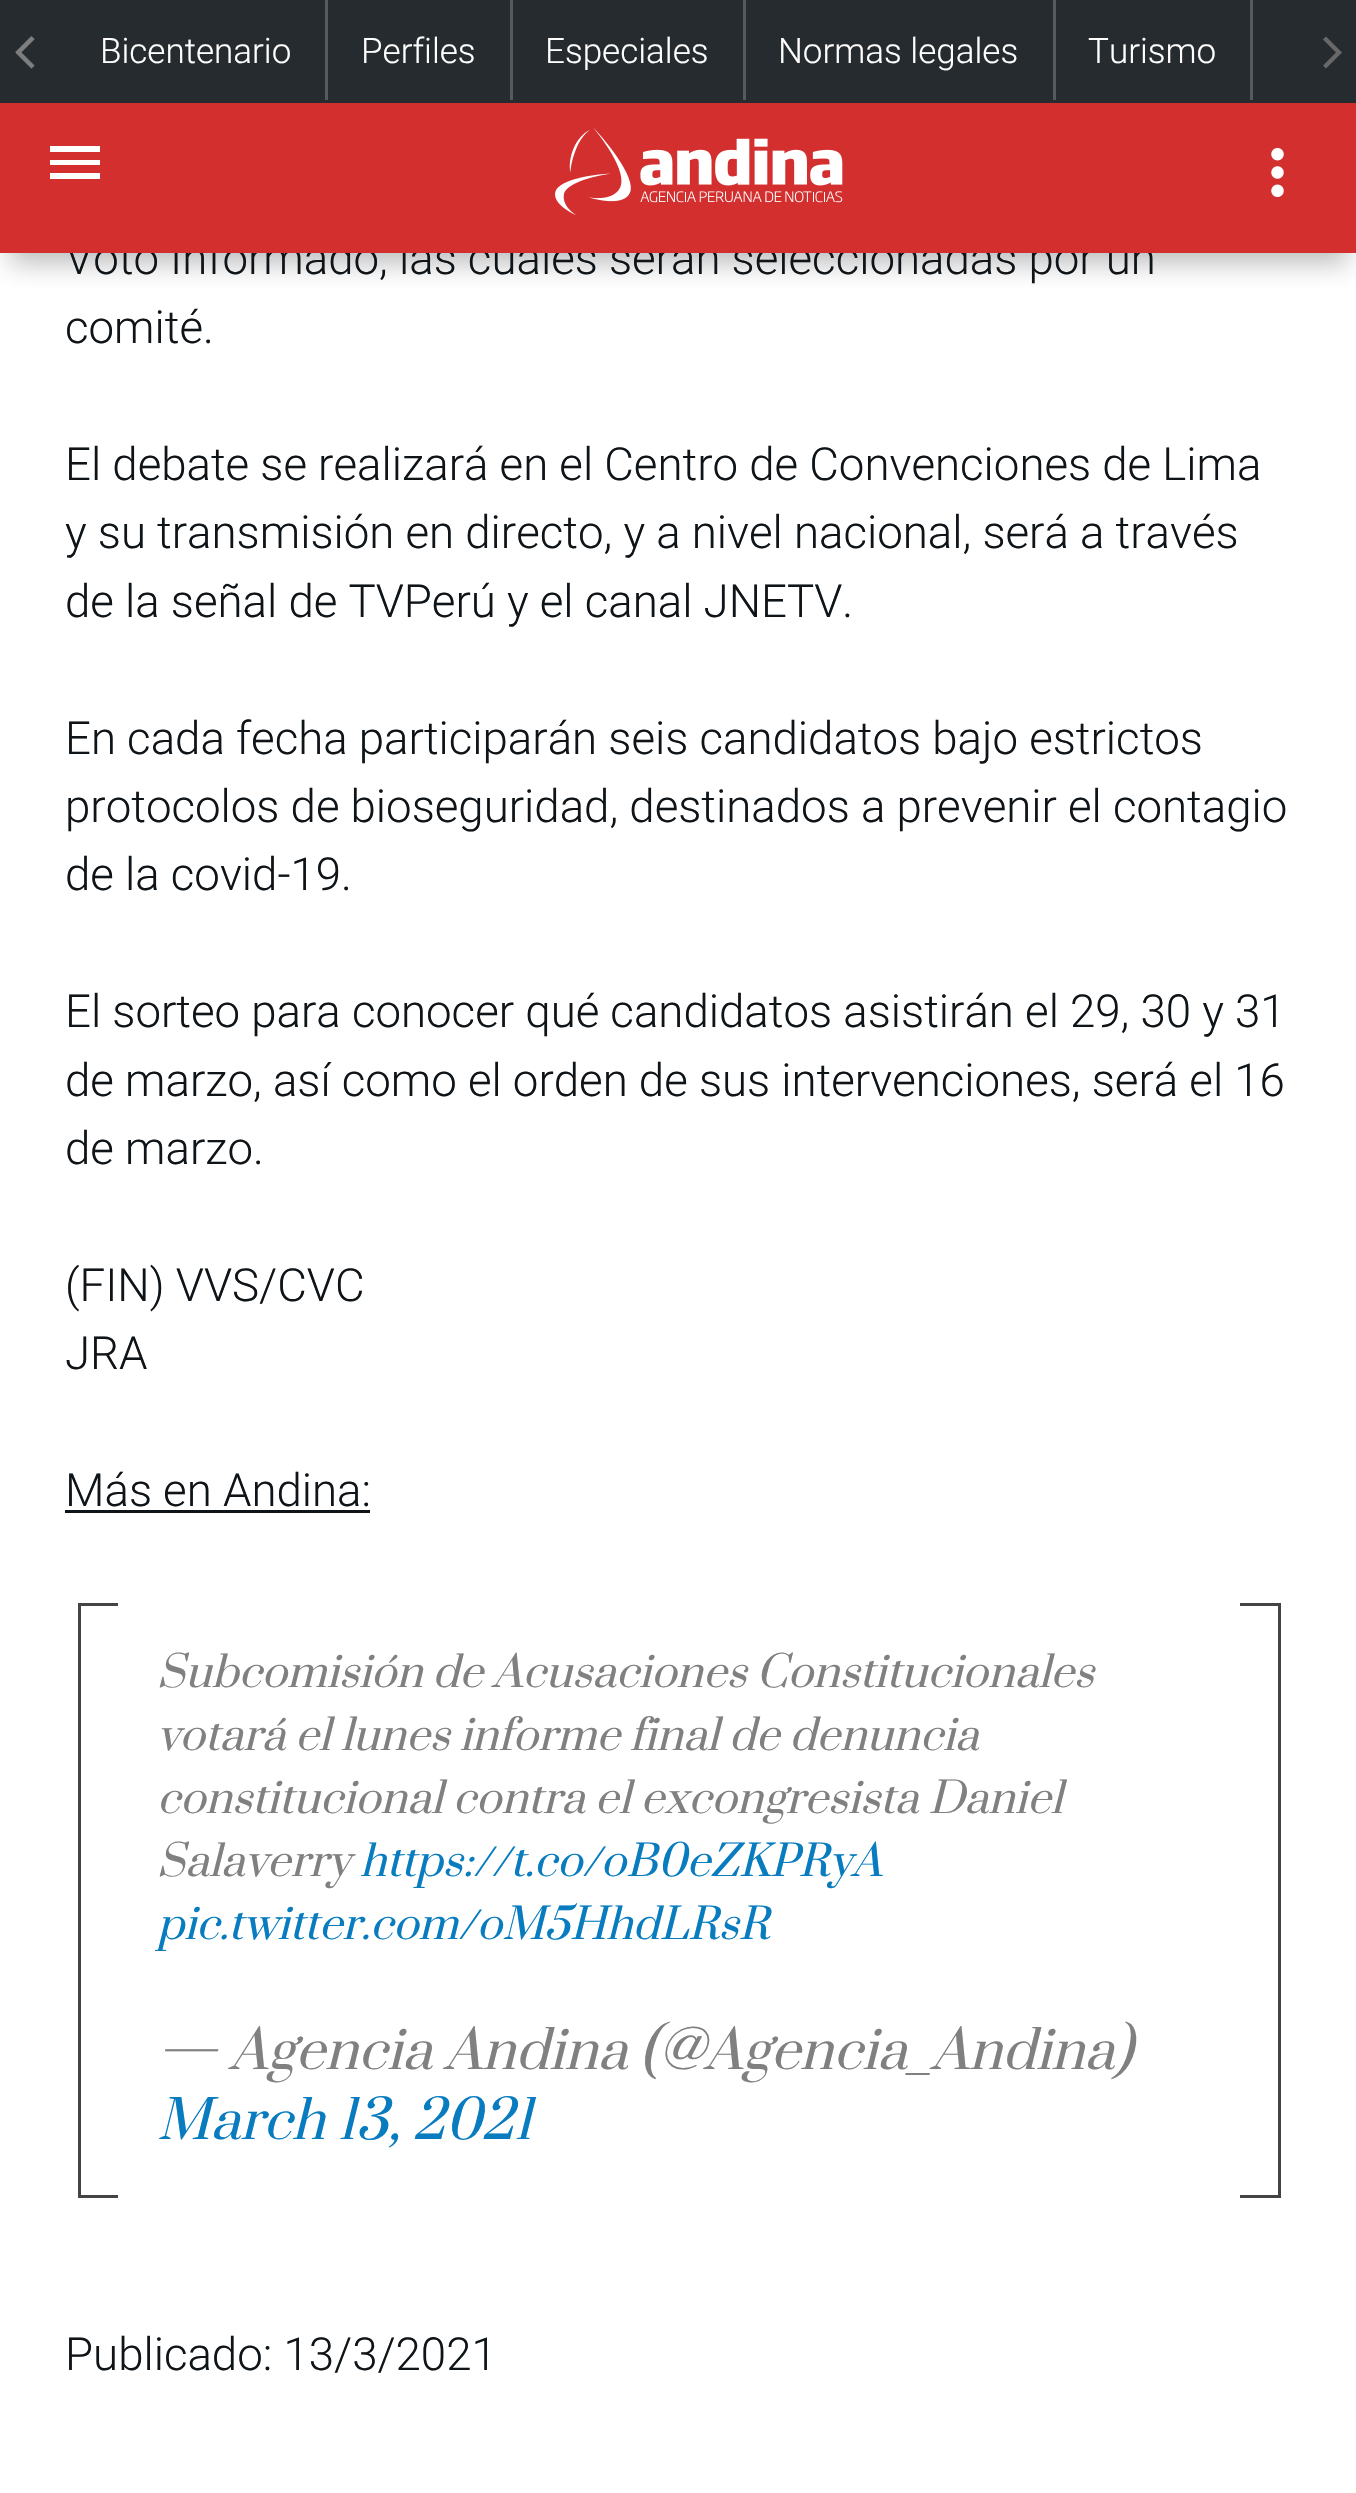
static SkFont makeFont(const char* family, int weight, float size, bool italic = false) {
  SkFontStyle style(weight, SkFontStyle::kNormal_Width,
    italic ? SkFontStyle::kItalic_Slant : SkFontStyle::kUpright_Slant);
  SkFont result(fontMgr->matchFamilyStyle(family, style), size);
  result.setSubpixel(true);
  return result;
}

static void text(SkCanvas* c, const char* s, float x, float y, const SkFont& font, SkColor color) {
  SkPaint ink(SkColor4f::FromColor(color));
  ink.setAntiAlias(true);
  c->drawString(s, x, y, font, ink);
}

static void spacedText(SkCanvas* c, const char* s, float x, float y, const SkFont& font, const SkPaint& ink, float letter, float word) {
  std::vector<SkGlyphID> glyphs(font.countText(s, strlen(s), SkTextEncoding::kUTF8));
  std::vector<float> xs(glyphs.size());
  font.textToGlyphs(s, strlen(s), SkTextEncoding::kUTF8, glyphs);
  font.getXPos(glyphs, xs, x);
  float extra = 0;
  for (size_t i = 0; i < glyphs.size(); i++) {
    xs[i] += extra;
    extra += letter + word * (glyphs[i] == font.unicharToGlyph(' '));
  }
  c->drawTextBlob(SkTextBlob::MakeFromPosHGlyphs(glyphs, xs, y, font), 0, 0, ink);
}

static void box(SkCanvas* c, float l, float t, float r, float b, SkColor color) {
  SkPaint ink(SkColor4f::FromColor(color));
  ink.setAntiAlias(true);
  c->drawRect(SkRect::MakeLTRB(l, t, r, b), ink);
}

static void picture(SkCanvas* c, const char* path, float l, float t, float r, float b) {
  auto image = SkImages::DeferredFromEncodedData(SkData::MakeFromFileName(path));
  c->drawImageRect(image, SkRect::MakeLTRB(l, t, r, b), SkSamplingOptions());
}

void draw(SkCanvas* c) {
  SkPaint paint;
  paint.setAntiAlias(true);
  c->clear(0xffffffff);
  paint.setColor(0x54323232);
  paint.setMaskFilter(SkMaskFilter::MakeBlur(kNormal_SkBlurStyle, 12.5f));
  c->drawRect(SkRect::MakeLTRB(10, 30, 1348, 263), paint);
  paint.setMaskFilter(nullptr);
  SkFont face1 = makeFont("Roboto", 300, 45.6f);
  text(c, "Voto Informado, las cuales serán seleccionadas por un", 65, 274, face1, 0xff0f1418);
  box(c, 0, 103, 1356, 253, 0xffd32f2f);
  box(c, 0, 0, 1356, 103, 0xff262b2f);
  picture(c, "img_01.png", 15, 36, 35, 69);
  SkFont face2 = makeFont("Roboto", 300, 35);
  text(c, "Bicentenario", 100, 63, face2, 0xffffffff);
  box(c, 325, 0, 328, 100, 0xff565a5d);
  text(c, "Perfiles", 361, 63, face2, 0xffffffff);
  box(c, 510, 0, 513, 100, 0xff565a5d);
  text(c, "Especiales", 545, 63, face2, 0xffffffff);
  box(c, 743, 0, 746, 100, 0xff565a5d);
  text(c, "Normas legales", 778, 63, face2, 0xffffffff);
  box(c, 1053, 0, 1056, 100, 0xff565a5d);
  text(c, "Turismo", 1088, 63, face2, 0xffffffff);
  box(c, 1250, 0, 1253, 100, 0xff565a5d);
  paint.setColor(0xff686868);
  c->drawPath(SkPathBuilder().moveTo(1326, 36.5f).lineTo(1342, 52.5f).lineTo(1326, 68.5f).lineTo(1323, 65.5f).lineTo(1336, 52.5f).lineTo(1323, 39.5f).close().detach(), paint);
  paint.setColor(0xffffffff);
  c->drawPath(SkPathBuilder().moveTo(100, 152).lineTo(50, 152).lineTo(50, 146).lineTo(100, 146).close().moveTo(100, 160).lineTo(50, 160).lineTo(50, 165).lineTo(100, 165).close().moveTo(100, 173).lineTo(50, 173).lineTo(50, 179).lineTo(100, 179).close().detach(), paint);
  picture(c, "img_02.png", 555, 128, 843, 215);
  picture(c, "img_03.png", 1271, 148, 1284, 198);
  text(c, "comité.", 65, 343, face1, 0xff0f1418);
  text(c, "El debate se realizará en el Centro de Convenciones de Lima", 65, 480, face1, 0xff0f1418);
  text(c, "y su transmisión en directo, y a nivel nacional, será a través", 65, 548, face1, 0xff0f1418);
  text(c, "de la señal de TVPerú y el canal JNETV.", 65, 617, face1, 0xff0f1418);
  text(c, "En cada fecha participarán seis candidatos bajo estrictos", 65, 754, face1, 0xff0f1418);
  text(c, "protocolos de bioseguridad, destinados a prevenir el contagio", 65, 822, face1, 0xff0f1418);
  text(c, "de la covid-19.", 65, 890, face1, 0xff0f1418);
  text(c, "El sorteo para conocer qué candidatos asistirán el 29, 30 y 31", 65, 1027, face1, 0xff0f1418);
  text(c, "de marzo, así como el orden de sus intervenciones, será el 16", 65, 1096, face1, 0xff0f1418);
  text(c, "de marzo.", 65, 1164, face1, 0xff0f1418);
  text(c, "(FIN) VVS/CVC", 65, 1301, face1, 0xff0f1418);
  text(c, "JRA", 65, 1369, face1, 0xff0f1418);
  text(c, "Más en Andina:", 65, 1506, face1, 0xff0f1418);
  box(c, 65, 1510, 370, 1513, 0xff0f1418);
  box(c, 78, 1603, 118, 1606, 0xff444444);
  box(c, 78, 2195, 118, 2198, 0xff444444);
  box(c, 78, 1603, 81, 2198, 0xff444444);
  SkFont face3 = makeFont("Prata", 400, 42, true);
  paint.setColor(0xff808080);
  spacedText(c, "Subcomisión de Acusaciones Constitucionales", 157, 1687, face3, paint, 0, -0.5f);
  text(c, "votará el lunes informe final de denuncia", 157, 1750, face3, 0xff808080);
  text(c, "constitucional contra el excongresista Daniel", 157, 1813, face3, 0xff808080);
  text(c, "Salaverry", 157, 1876, face3, 0xff808080);
  text(c, "https://t.co/oB0eZKPRyA", 360, 1876, face3, 0xff087cbf);
  text(c, "pic.twitter.com/oM5HhdLRsR", 157, 1939, face3, 0xff087cbf);
  box(c, 1240, 1603, 1280, 1606, 0xff444444);
  box(c, 1278, 1603, 1281, 2198, 0xff444444);
  box(c, 1240, 2195, 1280, 2198, 0xff444444);
  SkFont face4 = makeFont("Prata", 400, 52.5f, true);
  text(c, "— Agencia Andina (@Agencia_Andina)", 157, 2069, face4, 0xff808080);
  text(c, "March 13, 2021", 157, 2139, face4, 0xff087cbf);
  text(c, "Publicado: 13/3/2021", 65, 2370, face1, 0xff0f1418);
}
